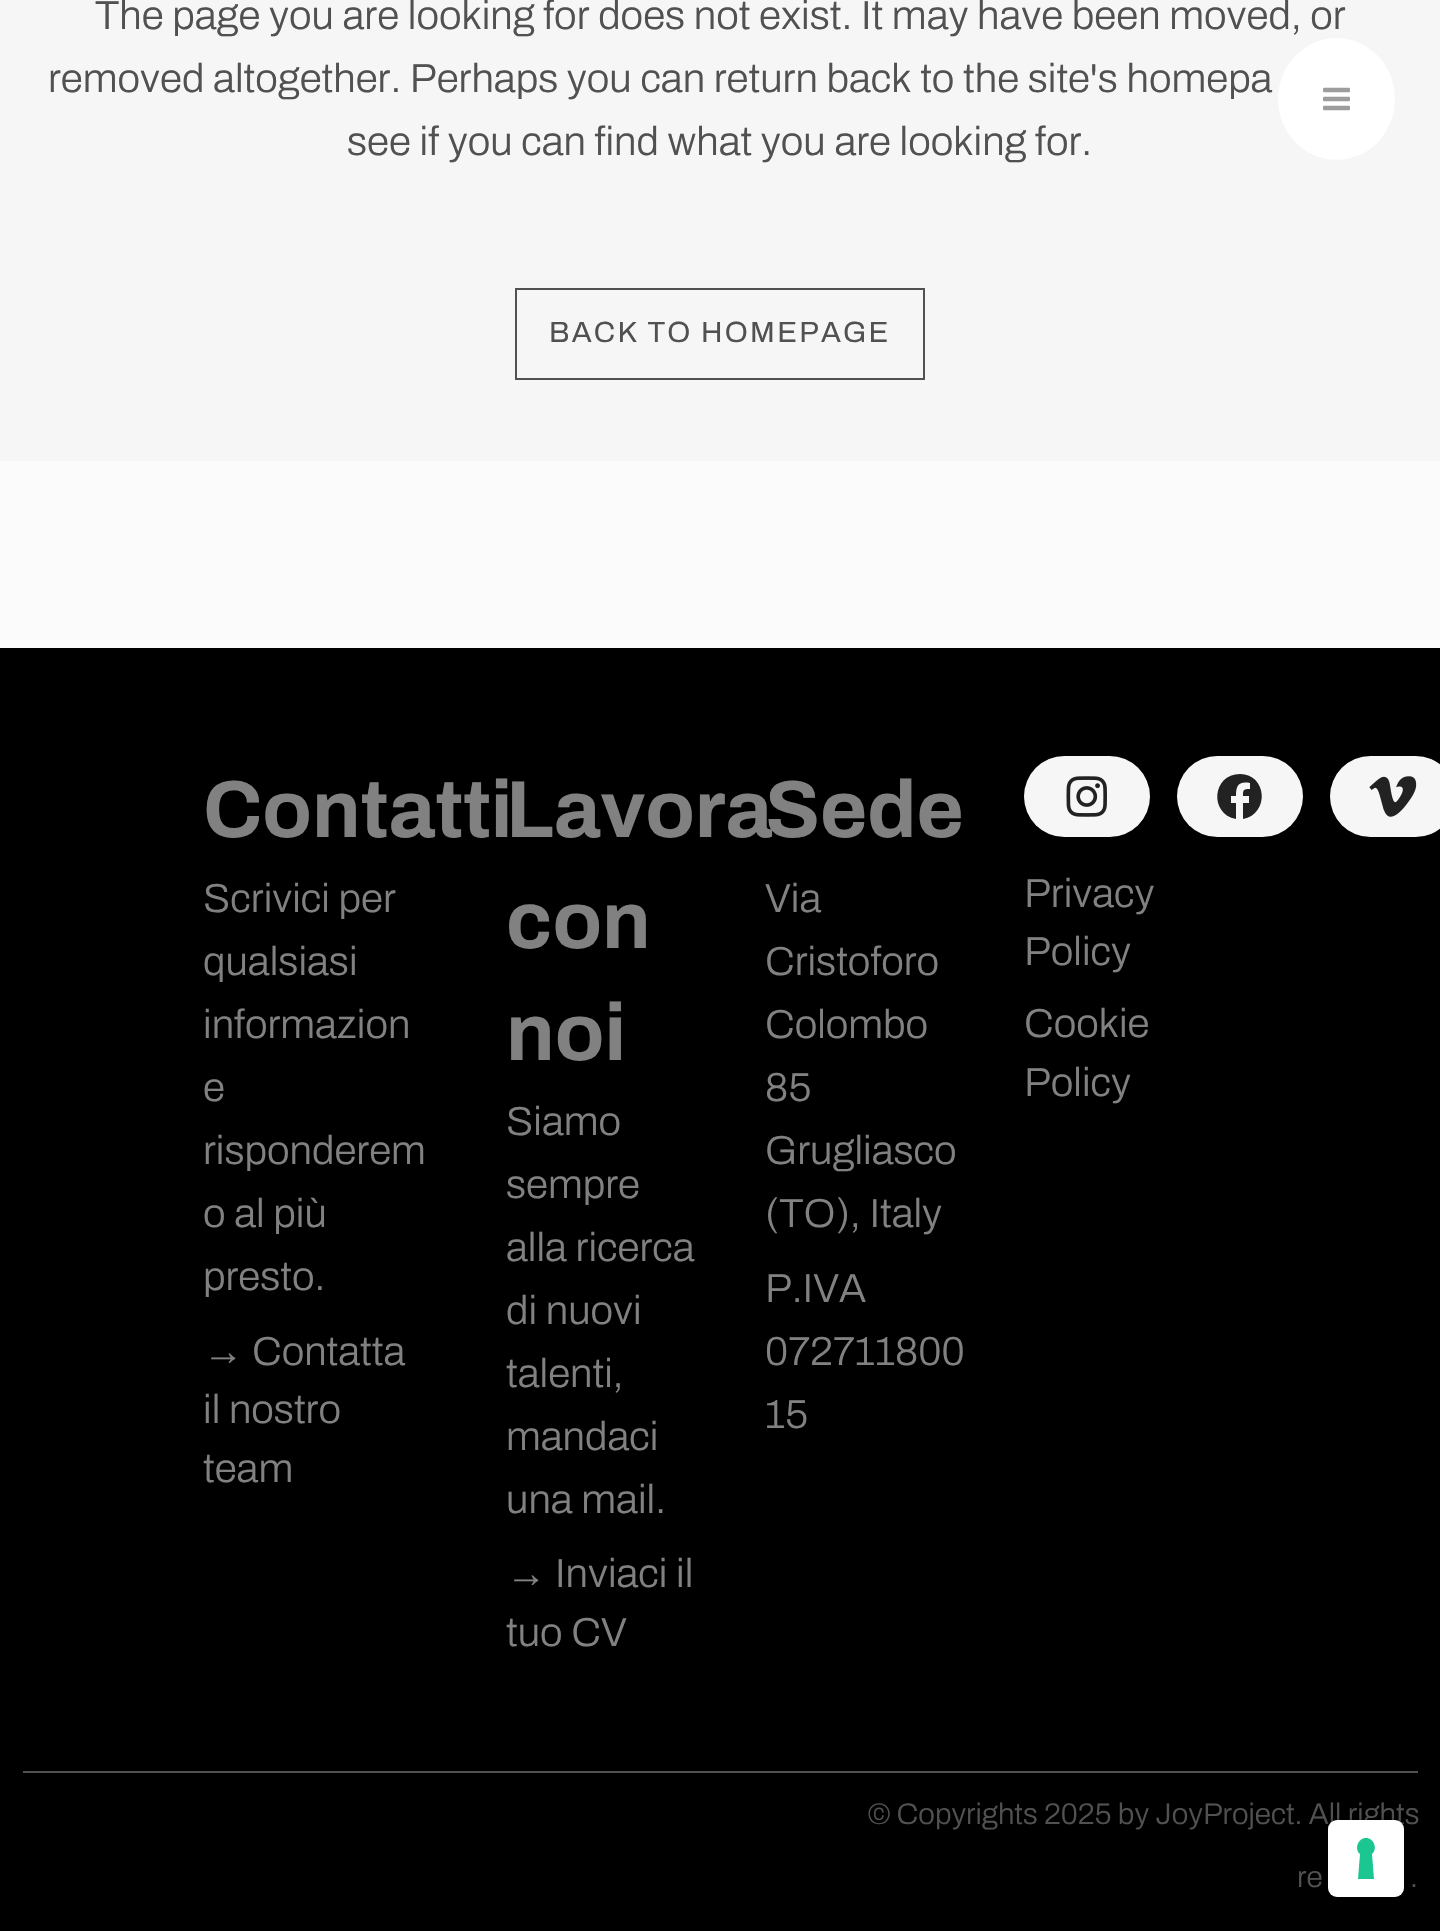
static SkFont makeFont(const char* family, int weight, float size, bool italic = false) {
  SkFontStyle style(weight, SkFontStyle::kNormal_Width,
    italic ? SkFontStyle::kItalic_Slant : SkFontStyle::kUpright_Slant);
  SkFont result(fontMgr->matchFamilyStyle(family, style), size);
  result.setSubpixel(true);
  return result;
}

static void text(SkCanvas* c, const char* s, float x, float y, const SkFont& font, SkColor color) {
  SkPaint ink(SkColor4f::FromColor(color));
  ink.setAntiAlias(true);
  c->drawString(s, x, y, font, ink);
}

static void spacedText(SkCanvas* c, const char* s, float x, float y, const SkFont& font, const SkPaint& ink, float letter, float word) {
  std::vector<SkGlyphID> glyphs(font.countText(s, strlen(s), SkTextEncoding::kUTF8));
  std::vector<float> xs(glyphs.size());
  font.textToGlyphs(s, strlen(s), SkTextEncoding::kUTF8, glyphs);
  font.getXPos(glyphs, xs, x);
  float extra = 0;
  for (size_t i = 0; i < glyphs.size(); i++) {
    xs[i] += extra;
    extra += letter + word * (glyphs[i] == font.unicharToGlyph(' '));
  }
  c->drawTextBlob(SkTextBlob::MakeFromPosHGlyphs(glyphs, xs, y, font), 0, 0, ink);
}

static void box(SkCanvas* c, float l, float t, float r, float b, SkColor color) {
  SkPaint ink(SkColor4f::FromColor(color));
  ink.setAntiAlias(true);
  c->drawRect(SkRect::MakeLTRB(l, t, r, b), ink);
}

static void roundBox(SkCanvas* c, float l, float t, float r, float b, float radius, SkColor color) {
  SkPaint ink(SkColor4f::FromColor(color));
  ink.setAntiAlias(true);
  c->drawRoundRect(SkRect::MakeLTRB(l, t, r, b), radius, radius, ink);
}

static void picture(SkCanvas* c, const char* path, float l, float t, float r, float b) {
  auto image = SkImages::DeferredFromEncodedData(SkData::MakeFromFileName(path));
  c->drawImageRect(image, SkRect::MakeLTRB(l, t, r, b), SkSamplingOptions());
}

void draw(SkCanvas* c) {
  SkPaint paint;
  paint.setAntiAlias(true);
  c->clear(0xfffbfbfb);
  box(c, 0, 0, 1440, 461, 0xfff6f6f6);
  SkFont face1 = makeFont("Archivo", 300, 40.5f);
  text(c, "The page you are looking for does not exist. It may have been moved, or", 95, 29, face1, 0xff515151);
  text(c, "removed altogether. Perhaps you can return back to the site's homepa", 48, 92, face1, 0xff515151);
  text(c, "see if you can find what you are looking for.", 347, 155, face1, 0xff515151);
  paint.setStyle(SkPaint::kStroke_Style);
  paint.setStrokeWidth(2);
  paint.setColor(0xff515151);
  c->drawRect(SkRect::MakeLTRB(516, 289, 924, 379), paint);
  SkFont face2 = makeFont("Archivo", 400, 29.25f);
  paint.setStyle(SkPaint::kFill_Style);
  spacedText(c, "BACK TO HOMEPAGE", 549, 342, face2, paint, 2.25f, 0);
  paint.setColor(0xffffffff);
  c->drawOval(SkRect::MakeLTRB(1278, 38, 1395, 160), paint);
  picture(c, "img_01.png", 1323, 87, 1350, 111);
  box(c, 0, 648, 1440, 1931, 0xff000000);
  SkFont face3 = makeFont("Archivo", 700, 81);
  text(c, "Contatti", 203, 837, face3, 0xff818181);
  text(c, "Scrivici per", 203, 912, face1, 0xff818181);
  text(c, "qualsiasi", 203, 975, face1, 0xff818181);
  text(c, "informazion", 203, 1038, face1, 0xff818181);
  text(c, "e", 203, 1101, face1, 0xff818181);
  text(c, "risponderem", 203, 1164, face1, 0xff818181);
  text(c, "o al più", 203, 1227, face1, 0xff818181);
  text(c, "presto.", 203, 1290, face1, 0xff818181);
  SkFont face4 = makeFont("Liberation Sans", 400, 40.5f);
  text(c, "→", 203, 1365, face4, 0xff818181);
  text(c, "Contatta", 252, 1365, face1, 0xff818181);
  text(c, "il nostro", 203, 1423, face1, 0xff818181);
  text(c, "team", 203, 1482, face1, 0xff818181);
  text(c, "Lavora", 506, 837, face3, 0xff818181);
  text(c, "con", 506, 948, face3, 0xff818181);
  text(c, "noi", 506, 1060, face3, 0xff818181);
  text(c, "Siamo", 506, 1135, face1, 0xff818181);
  text(c, "sempre", 506, 1198, face1, 0xff818181);
  text(c, "alla ricerca", 506, 1261, face1, 0xff818181);
  text(c, "di nuovi", 506, 1324, face1, 0xff818181);
  text(c, "talenti,", 506, 1387, face1, 0xff818181);
  text(c, "mandaci", 506, 1450, face1, 0xff818181);
  text(c, "una mail.", 506, 1513, face1, 0xff818181);
  text(c, "→", 506, 1587, face4, 0xff818181);
  text(c, "Inviaci il", 555, 1587, face1, 0xff818181);
  text(c, "tuo CV", 506, 1646, face1, 0xff818181);
  text(c, "Sede", 765, 837, face3, 0xff818181);
  text(c, "Via", 765, 912, face1, 0xff818181);
  text(c, "Cristoforo", 765, 975, face1, 0xff818181);
  text(c, "Colombo", 765, 1038, face1, 0xff818181);
  text(c, "85", 765, 1101, face1, 0xff818181);
  text(c, "Grugliasco", 765, 1164, face1, 0xff818181);
  text(c, "(TO), Italy", 765, 1227, face1, 0xff818181);
  text(c, "P.IVA", 765, 1302, face1, 0xff818181);
  text(c, "072711800", 765, 1365, face1, 0xff818181);
  text(c, "15", 765, 1428, face1, 0xff818181);
  roundBox(c, 1024, 756, 1150, 837, 40.5f, 0xfff6f6f6);
  picture(c, "img_02.png", 1066, 776, 1107, 817);
  roundBox(c, 1177, 756, 1303, 837, 40.5f, 0xfff6f6f6);
  paint.setColor(0xff222222);
  c->drawPath(SkPathBuilder().moveTo(1240, 774).cubicTo(1212, 774, 1209, 814, 1236, 819).lineTo(1236, 803).lineTo(1231, 803).lineTo(1231, 796).lineTo(1236, 796).cubicTo(1236, 786, 1238, 781, 1250, 783).lineTo(1250, 789).cubicTo(1243, 789, 1243, 790, 1243, 796).lineTo(1249, 796).lineTo(1249, 803).lineTo(1243, 803).lineTo(1243, 819).cubicTo(1270, 814, 1267, 774, 1240, 774).close().detach(), paint);
  roundBox(c, 1330, 756, 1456, 837, 40.5f, 0xfff6f6f6);
  picture(c, "img_03.png", 1369, 776, 1417, 817);
  text(c, "Privacy", 1024, 907, face1, 0xff818181);
  text(c, "Policy", 1024, 965, face1, 0xff818181);
  text(c, "Cookie", 1024, 1037, face1, 0xff818181);
  text(c, "Policy", 1024, 1096, face1, 0xff818181);
  box(c, 23, 1771, 1418, 1773, 0xff515151);
  SkFont face5 = makeFont("Archivo", 300, 29.75f);
  text(c, "© Copyrights 2025 by JoyProject. All rights", 868, 1824, face5, 0xff515151);
  text(c, "re", 1297, 1887, face5, 0xff515151);
  text(c, ".", 1410, 1887, face5, 0xff515151);
  paint.setStyle(SkPaint::kStroke_Style);
  paint.setColor(0x26000000);
  c->drawRoundRect(SkRect::MakeLTRB(1326, 1819, 1405, 1898), 10, 10, paint);
  roundBox(c, 1328, 1820, 1404, 1897, 9, 0xffffffff);
  paint.setStyle(SkPaint::kFill_Style);
  paint.setColor(0xff1cc691);
  c->drawPath(SkPathBuilder(SkPathFillType::kEvenOdd).moveTo(1366, 1838).cubicTo(1374, 1838, 1378, 1849, 1372, 1854).lineTo(1374, 1879).lineTo(1358, 1879).lineTo(1360, 1854).cubicTo(1354, 1849, 1358, 1838, 1366, 1838).close().detach(), paint);
}
